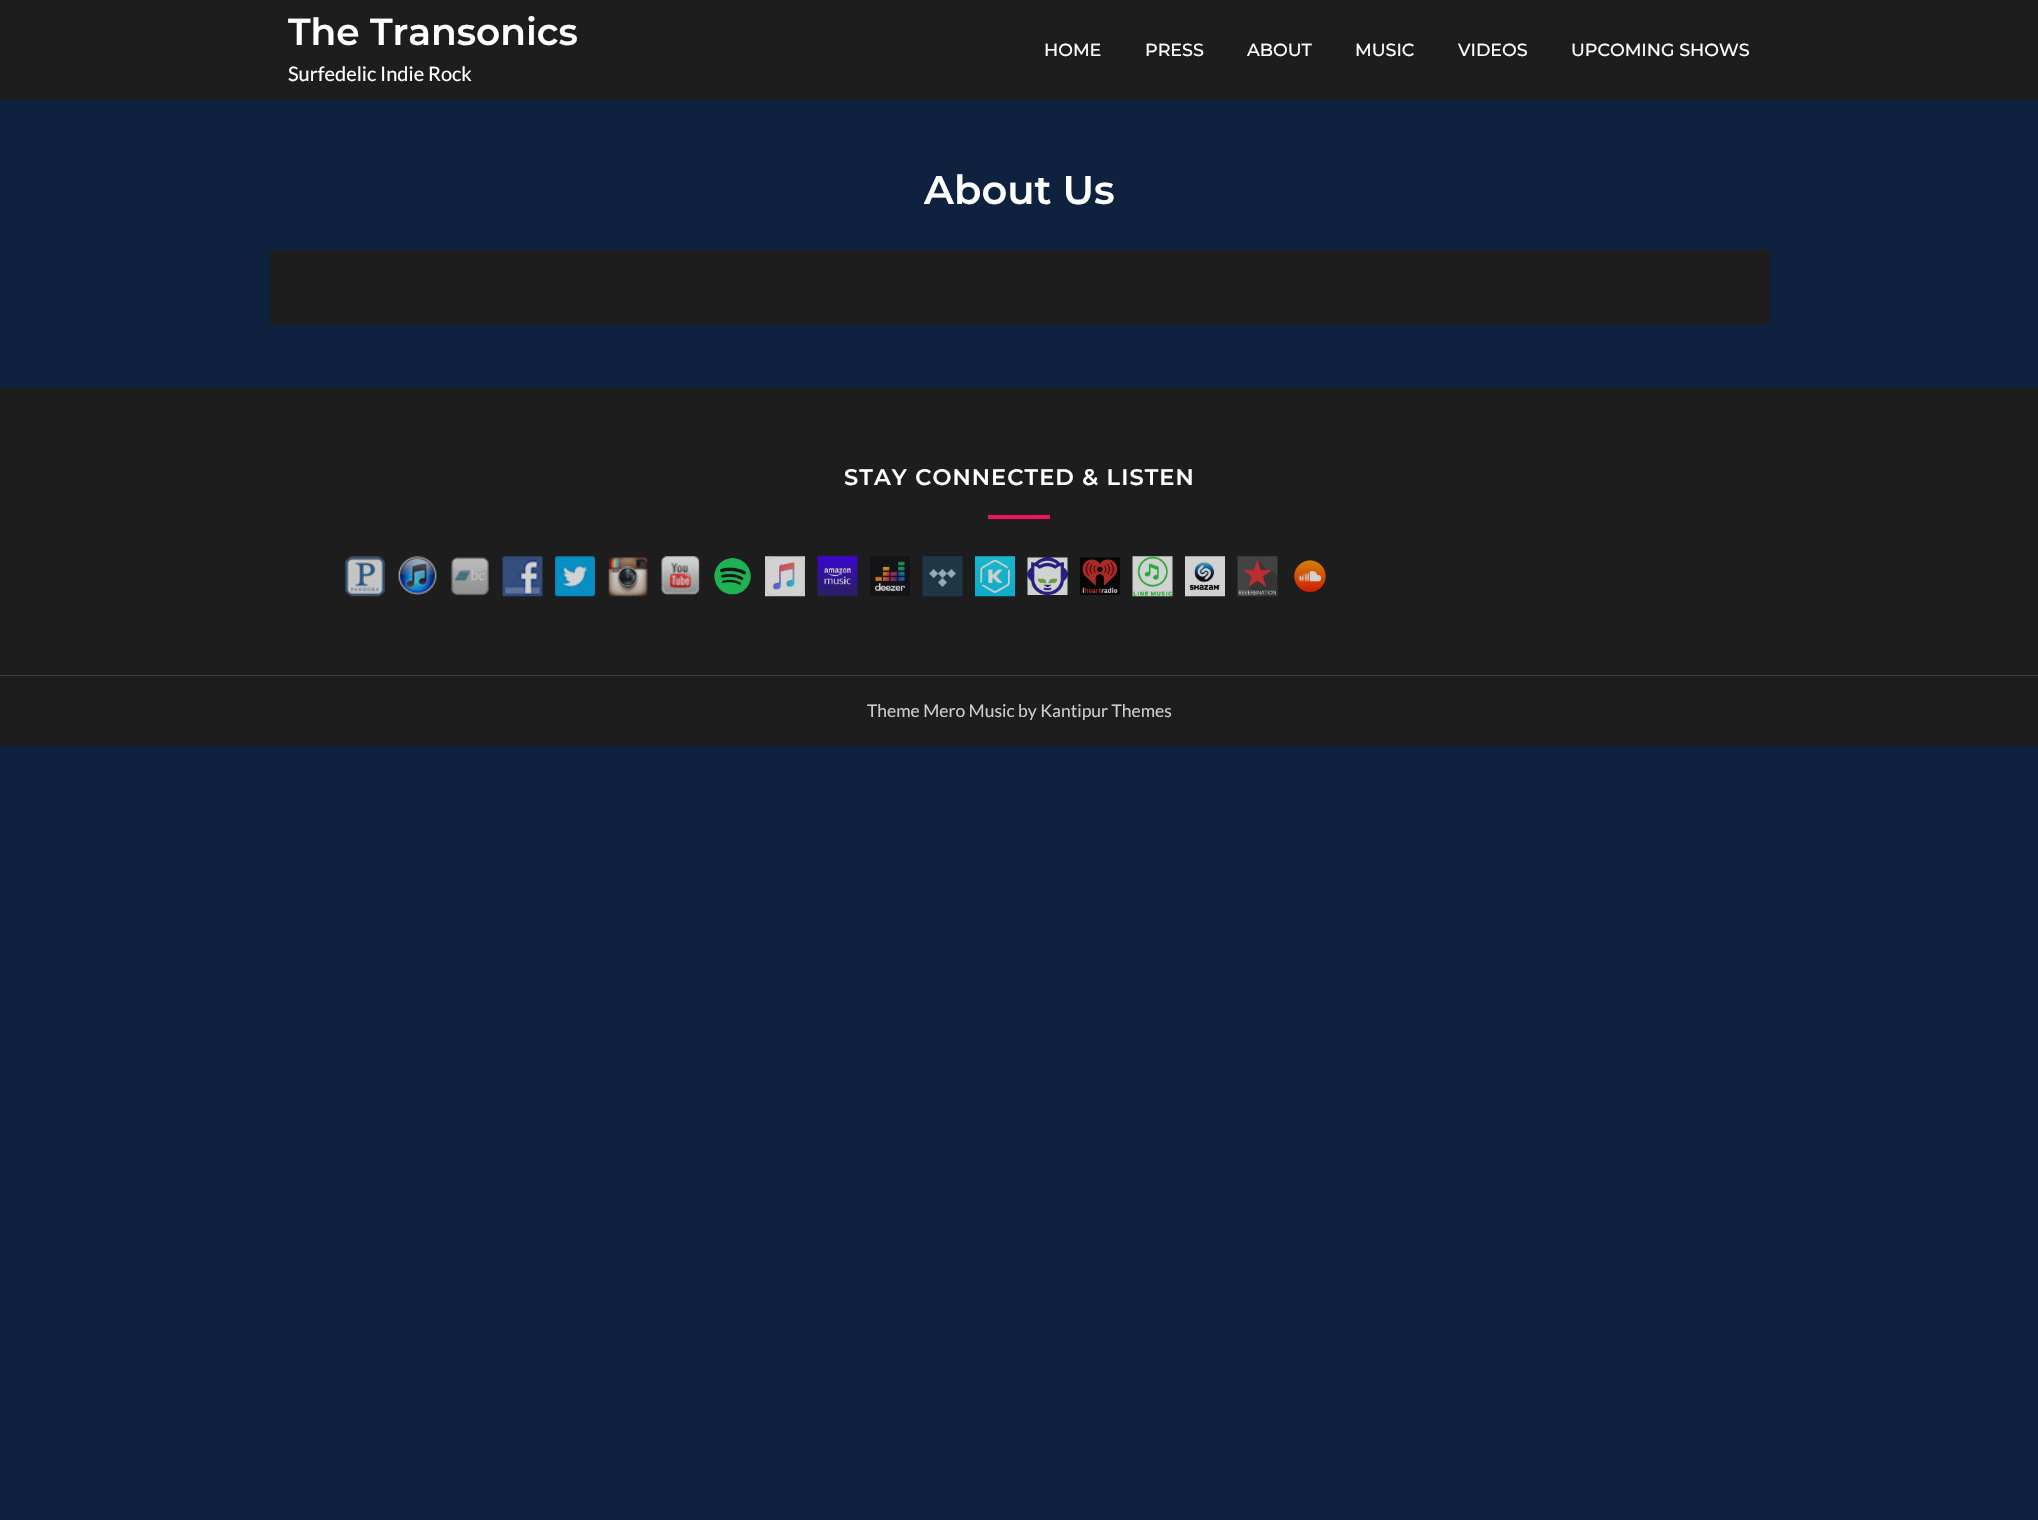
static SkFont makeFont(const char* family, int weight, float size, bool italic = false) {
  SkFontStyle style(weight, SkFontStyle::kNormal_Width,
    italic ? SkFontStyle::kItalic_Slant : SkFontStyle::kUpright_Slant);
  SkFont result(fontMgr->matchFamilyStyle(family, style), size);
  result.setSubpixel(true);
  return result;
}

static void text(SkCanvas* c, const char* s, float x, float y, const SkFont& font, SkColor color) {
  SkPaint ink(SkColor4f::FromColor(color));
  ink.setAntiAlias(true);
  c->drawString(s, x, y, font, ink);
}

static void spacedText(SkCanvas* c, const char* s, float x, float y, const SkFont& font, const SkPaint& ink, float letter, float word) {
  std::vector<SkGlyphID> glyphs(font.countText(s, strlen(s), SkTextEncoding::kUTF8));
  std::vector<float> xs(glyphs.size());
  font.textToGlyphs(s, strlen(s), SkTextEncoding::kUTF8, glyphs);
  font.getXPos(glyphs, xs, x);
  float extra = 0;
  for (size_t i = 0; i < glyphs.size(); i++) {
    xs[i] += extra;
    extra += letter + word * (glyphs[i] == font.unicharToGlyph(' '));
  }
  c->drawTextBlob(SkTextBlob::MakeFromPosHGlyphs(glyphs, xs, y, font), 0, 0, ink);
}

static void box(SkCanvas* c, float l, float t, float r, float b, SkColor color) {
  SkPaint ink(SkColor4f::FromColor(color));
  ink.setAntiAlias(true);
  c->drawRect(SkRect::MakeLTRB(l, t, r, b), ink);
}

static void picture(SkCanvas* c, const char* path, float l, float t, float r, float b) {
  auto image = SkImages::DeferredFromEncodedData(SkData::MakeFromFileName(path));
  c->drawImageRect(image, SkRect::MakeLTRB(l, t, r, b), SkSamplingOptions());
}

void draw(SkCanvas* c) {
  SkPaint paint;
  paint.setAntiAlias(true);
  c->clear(0xff0e213f);
  box(c, 0, 0, 2038, 100, 0xff1d1d1d);
  SkFont face1 = makeFont("Montserrat", 600, 37.5f);
  text(c, "The Transonics", 288, 45, face1, 0xffffffff);
  SkFont face2 = makeFont("Lato", 400, 20);
  text(c, "Surfedelic Indie Rock", 288, 81, face2, 0xffffffff);
  SkFont face3 = makeFont("Montserrat", 500, 17.5f);
  text(c, "HOME", 1044, 56, face3, 0xffffffff);
  text(c, "PRESS", 1145, 56, face3, 0xffffffff);
  text(c, "ABOUT", 1247, 56, face3, 0xffffffff);
  text(c, "MUSIC", 1355, 56, face3, 0xffffffff);
  text(c, "VIDEOS", 1458, 56, face3, 0xffffffff);
  text(c, "UPCOMING SHOWS", 1571, 56, face3, 0xffffffff);
  SkFont face4 = makeFont("Montserrat", 600, 40);
  text(c, "About Us", 924, 204, face4, 0xffffffff);
  box(c, 270, 250, 1770, 325, 0xff1d1d1d);
  box(c, 0, 388, 2038, 746, 0xff1d1d1d);
  SkFont face5 = makeFont("Montserrat", 600, 22.5f);
  paint.setColor(0xffffffff);
  spacedText(c, "STAY CONNECTED & LISTEN", 844, 485, face5, paint, 1.1f, 0);
  box(c, 988, 515, 1050, 519, 0xffed145b);
  picture(c, "img_01.png", 345, 556, 385, 597);
  picture(c, "img_02.png", 397, 556, 437, 595);
  picture(c, "img_03.png", 451, 557, 489, 596);
  picture(c, "img_04.png", 502, 556, 543, 597);
  picture(c, "img_05.png", 555, 556, 595, 597);
  picture(c, "img_06.png", 608, 557, 648, 597);
  picture(c, "img_07.png", 661, 556, 700, 596);
  picture(c, "img_08.png", 714, 558, 751, 595);
  picture(c, "img_09.png", 765, 556, 805, 597);
  picture(c, "img_10.png", 817, 556, 858, 597);
  picture(c, "img_11.png", 870, 556, 910, 596);
  picture(c, "img_12.png", 922, 556, 963, 597);
  picture(c, "img_13.png", 975, 556, 1015, 597);
  picture(c, "img_14.png", 1027, 557, 1068, 595);
  picture(c, "img_15.png", 1080, 557, 1120, 595);
  picture(c, "img_16.png", 1132, 556, 1173, 597);
  picture(c, "img_17.png", 1185, 556, 1225, 597);
  picture(c, "img_18.png", 1237, 556, 1278, 597);
  picture(c, "img_19.png", 1294, 560, 1326, 593);
  box(c, 0, 675, 2038, 676, 0xff3f3f3f);
  SkFont face6 = makeFont("Lato", 400, 17.5f);
  text(c, "Theme Mero Music by Kantipur Themes", 867, 717, face6, 0xffcccccc);
}
